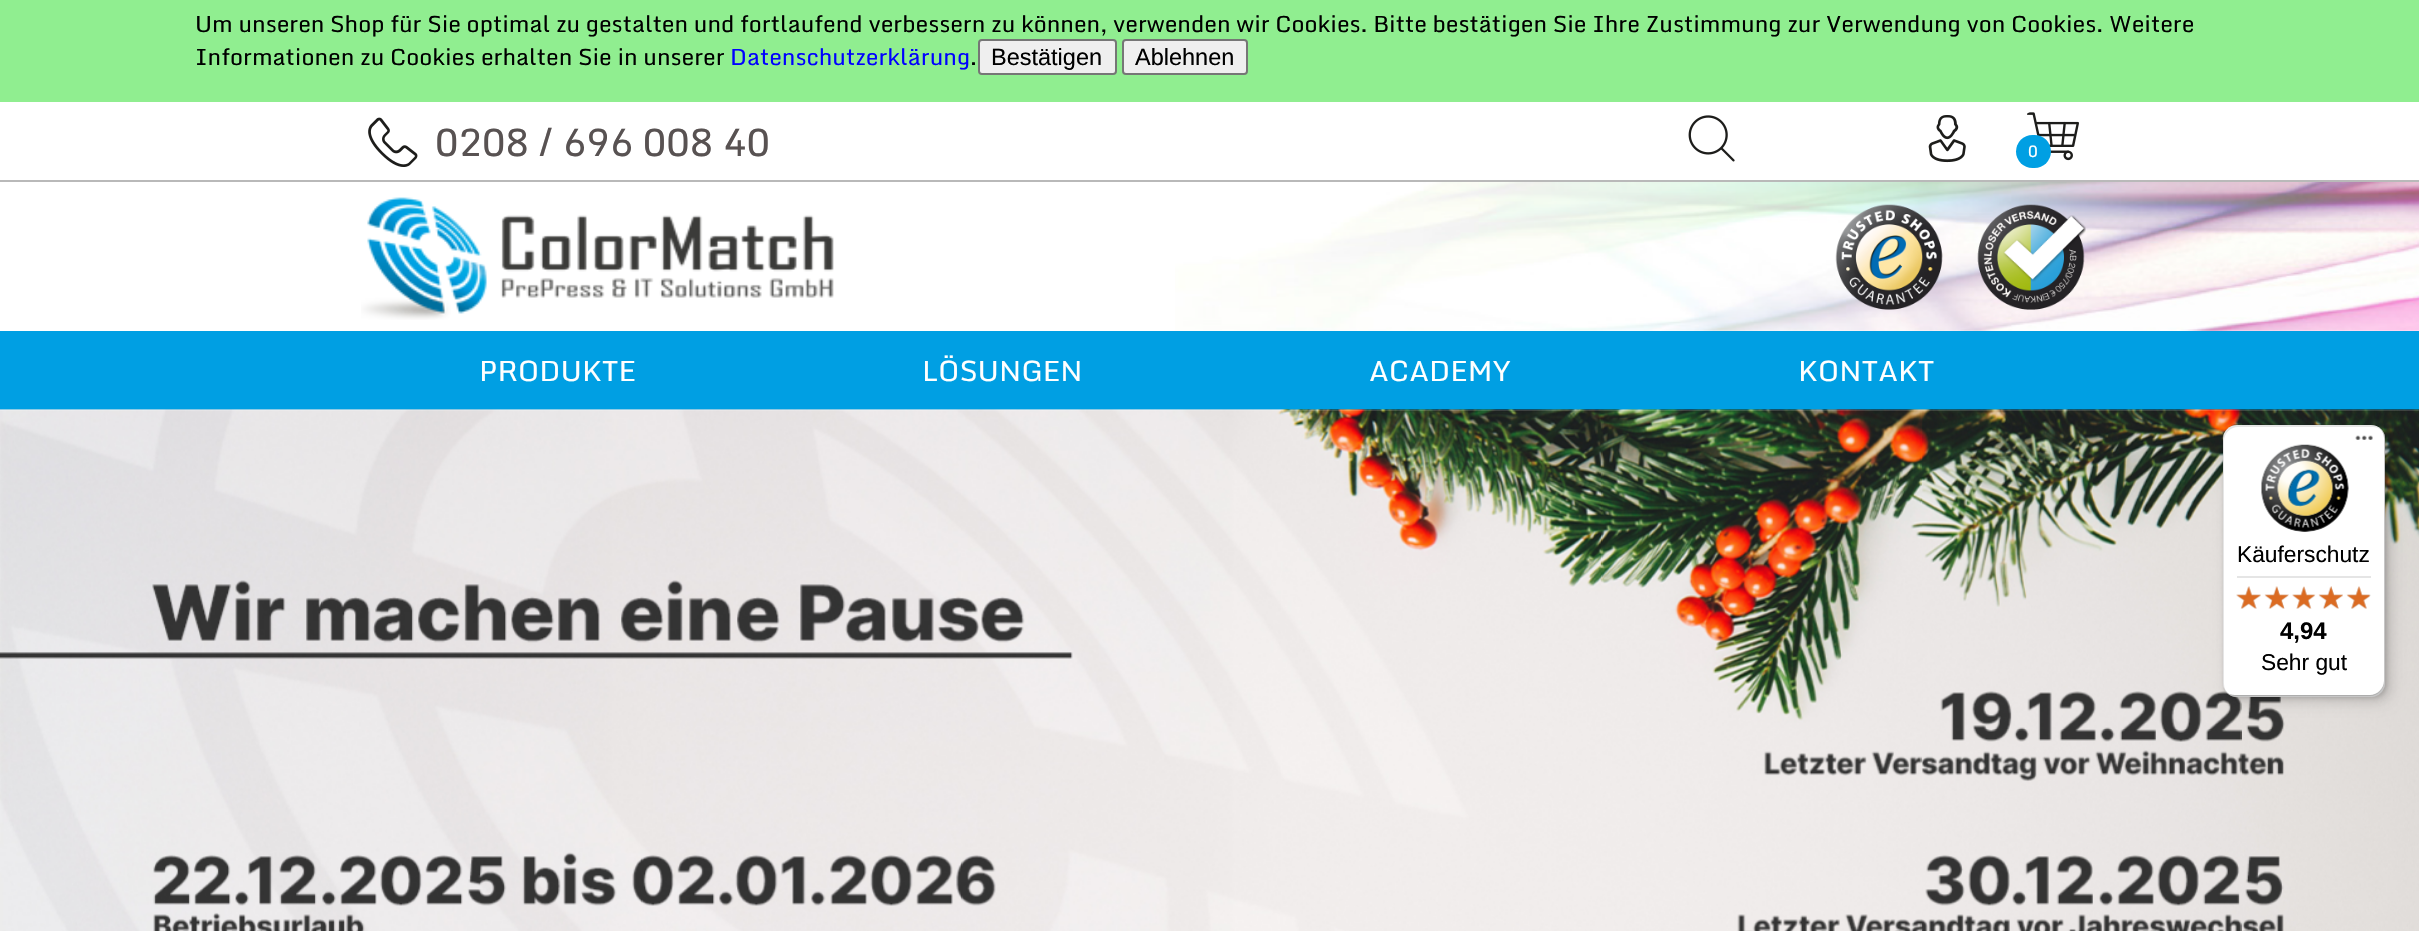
static SkFont makeFont(const char* family, int weight, float size, bool italic = false) {
  SkFontStyle style(weight, SkFontStyle::kNormal_Width,
    italic ? SkFontStyle::kItalic_Slant : SkFontStyle::kUpright_Slant);
  SkFont result(fontMgr->matchFamilyStyle(family, style), size);
  result.setSubpixel(true);
  return result;
}

static void text(SkCanvas* c, const char* s, float x, float y, const SkFont& font, SkColor color) {
  SkPaint ink(SkColor4f::FromColor(color));
  ink.setAntiAlias(true);
  c->drawString(s, x, y, font, ink);
}

static void box(SkCanvas* c, float l, float t, float r, float b, SkColor color) {
  SkPaint ink(SkColor4f::FromColor(color));
  ink.setAntiAlias(true);
  c->drawRect(SkRect::MakeLTRB(l, t, r, b), ink);
}

static void roundBox(SkCanvas* c, float l, float t, float r, float b, float radius, SkColor color) {
  SkPaint ink(SkColor4f::FromColor(color));
  ink.setAntiAlias(true);
  c->drawRoundRect(SkRect::MakeLTRB(l, t, r, b), radius, radius, ink);
}

static void picture(SkCanvas* c, const char* path, float l, float t, float r, float b) {
  auto image = SkImages::DeferredFromEncodedData(SkData::MakeFromFileName(path));
  c->drawImageRect(image, SkRect::MakeLTRB(l, t, r, b), SkSamplingOptions());
}

void draw(SkCanvas* c) {
  SkPaint paint;
  paint.setAntiAlias(true);
  c->clear(0xffffffff);
  box(c, 0, 0, 2419, 102, 0xff90ee90);
  SkFont face1 = makeFont("Monda", 400, 22.75f);
  text(c, "Um unseren Shop für Sie optimal zu gestalten und fortlaufend verbessern zu können, verwenden wir Cookies. Bitte bestätigen Sie Ihre Zustimmung zur Verwendung von Cookies. Weitere", 195, 32, face1, 0xff000000);
  text(c, "Informationen zu Cookies erhalten Sie in unserer", 195, 65, face1, 0xff000000);
  text(c, "Datenschutzerklärung", 730, 65, face1, 0xff0000ff);
  text(c, ".", 970, 65, face1, 0xff000000);
  paint.setColor(0xffefefef);
  c->drawRoundRect(SkRect::MakeLTRB(979, 40, 1116, 74), 3, 3, paint);
  paint.setStyle(SkPaint::kStroke_Style);
  paint.setStrokeWidth(2);
  paint.setColor(0xff767676);
  c->drawRoundRect(SkRect::MakeLTRB(979, 40, 1116, 74), 3, 3, paint);
  SkFont face2 = makeFont("Liberation Sans", 400, 23.5f);
  text(c, "Bestätigen", 991, 65, face2, 0xff000000);
  paint.setStyle(SkPaint::kFill_Style);
  paint.setColor(0xffefefef);
  c->drawRoundRect(SkRect::MakeLTRB(1123, 40, 1247, 74), 3, 3, paint);
  paint.setStyle(SkPaint::kStroke_Style);
  paint.setColor(0xff767676);
  c->drawRoundRect(SkRect::MakeLTRB(1123, 40, 1247, 74), 3, 3, paint);
  text(c, "Ablehnen", 1135, 65, face2, 0xff000000);
  box(c, 0, 180, 2419, 182, 0xffb9b9b9);
  picture(c, "img_01.png", 368, 117, 418, 167);
  SkFont face3 = makeFont("Monda", 400, 38.5f);
  text(c, "0208 / 696 008 40", 435, 156, face3, 0xff585252);
  picture(c, "img_02.png", 1688, 115, 1735, 162);
  picture(c, "img_03.png", 1928, 115, 1966, 163);
  picture(c, "img_04.png", 2027, 112, 2079, 161);
  roundBox(c, 2016, 135, 2051, 168, 16.5f, 0xff009fe3);
  SkFont face4 = makeFont("Monda", 400, 16);
  text(c, "0", 2028, 157, face4, 0xffffffff);
  picture(c, "img_05.png", 1175, 182, 2419, 331);
  picture(c, "img_06.png", 361, 197, 834, 320);
  picture(c, "img_07.png", 1835, 204, 1943, 310);
  picture(c, "img_08.png", 1977, 204, 2086, 310);
  box(c, 0, 331, 2419, 410, 0xff009fe3);
  SkFont face5 = makeFont("Monda", 400, 28.5f);
  text(c, "PRODUKTE", 479, 381, face5, 0xffffffff);
  text(c, "LÖSUNGEN", 922, 381, face5, 0xffffffff);
  text(c, "ACADEMY", 1369, 381, face5, 0xffffffff);
  text(c, "KONTAKT", 1798, 381, face5, 0xffffffff);
  picture(c, "img_09.png", 0, 409, 2419, 931);
  paint.setStyle(SkPaint::kFill_Style);
  paint.setColor(0x26000000);
  paint.setMaskFilter(SkMaskFilter::MakeBlur(kNormal_SkBlurStyle, 7));
  c->drawRoundRect(SkRect::MakeLTRB(2228, 431, 2391, 702), 14, 14, paint);
  paint.setMaskFilter(nullptr);
  paint.setMaskFilter(SkMaskFilter::MakeBlur(kNormal_SkBlurStyle, 2));
  c->drawRoundRect(SkRect::MakeLTRB(2224, 427, 2387, 698), 14, 14, paint);
  paint.setMaskFilter(nullptr);
  roundBox(c, 2223, 425, 2385, 697, 14, 0xffffffff);
  paint.setColor(0x1a000000);
  c->drawPath(SkPathBuilder().moveTo(2238, 427).lineTo(2373, 427).cubicTo(2376, 427, 2379, 428, 2381, 430).cubicTo(2379, 427, 2375, 425, 2371, 425).lineTo(2237, 425).cubicTo(2229, 425, 2223, 431, 2223, 439).lineTo(2223, 683).cubicTo(2223, 688, 2225, 692, 2229, 694).cubicTo(2226, 692, 2224, 688, 2224, 684).lineTo(2224, 441).cubicTo(2224, 433, 2231, 427, 2238, 427).close().detach(), paint);
  paint.setColor(0x33000000);
  c->drawPath(SkPathBuilder().moveTo(2226, 691).cubicTo(2228, 695, 2232, 697, 2237, 697).lineTo(2371, 697).cubicTo(2379, 697, 2385, 691, 2385, 683).lineTo(2385, 439).cubicTo(2385, 434, 2383, 430, 2379, 428).cubicTo(2382, 430, 2384, 434, 2384, 438).lineTo(2384, 681).cubicTo(2384, 688, 2377, 695, 2370, 695).lineTo(2235, 695).cubicTo(2231, 695, 2228, 694, 2226, 691).close().detach(), paint);
  paint.setColor(0x33323232);
  c->drawPath(SkPathBuilder().moveTo(2226, 691).cubicTo(2228, 695, 2232, 697, 2237, 697).lineTo(2371, 697).cubicTo(2379, 697, 2385, 691, 2385, 683).lineTo(2385, 439).cubicTo(2385, 435, 2384, 432, 2381, 430).cubicTo(2383, 432, 2384, 435, 2384, 438).lineTo(2384, 681).cubicTo(2384, 689, 2378, 695, 2370, 695).lineTo(2235, 695).cubicTo(2232, 695, 2228, 694, 2226, 691).close().detach(), paint);
  paint.setColor(0x4dffffff);
  c->drawPath(SkPathBuilder().moveTo(2226, 691).cubicTo(2228, 695, 2232, 697, 2237, 697).lineTo(2371, 697).cubicTo(2379, 697, 2385, 691, 2385, 683).lineTo(2385, 439).cubicTo(2385, 434, 2383, 430, 2380, 428).cubicTo(2382, 431, 2384, 434, 2384, 438).lineTo(2384, 682).cubicTo(2384, 689, 2378, 696, 2370, 696).lineTo(2236, 696).cubicTo(2232, 696, 2228, 694, 2226, 691).close().detach(), paint);
  picture(c, "img_10.png", 2355, 435, 2373, 440);
  picture(c, "img_11.png", 2261, 444, 2349, 532);
  SkFont face6 = makeFont("Liberation Sans", 400, 22.75f);
  text(c, "Käuferschutz", 2237, 562, face6, 0xff000000);
  box(c, 2237, 576, 2371, 578, 0xffe5e5e5);
  picture(c, "img_12.png", 2236, 586, 2261, 609);
  picture(c, "img_13.png", 2265, 586, 2289, 609);
  picture(c, "img_14.png", 2292, 587, 2315, 609);
  picture(c, "img_15.png", 2319, 586, 2343, 609);
  picture(c, "img_16.png", 2347, 586, 2371, 609);
  picture(c, "img_17.png", 2236, 586, 2261, 609);
  picture(c, "img_18.png", 2264, 586, 2289, 609);
  picture(c, "img_19.png", 2292, 586, 2316, 609);
  picture(c, "img_20.png", 2318, 586, 2343, 609);
  picture(c, "img_21.png", 2346, 586, 2370, 609);
  SkFont face7 = makeFont("Liberation Sans", 700, 24);
  text(c, "4,94", 2280, 639, face7, 0xff000000);
  text(c, "Sehr gut", 2261, 670, face6, 0xff000000);
}
